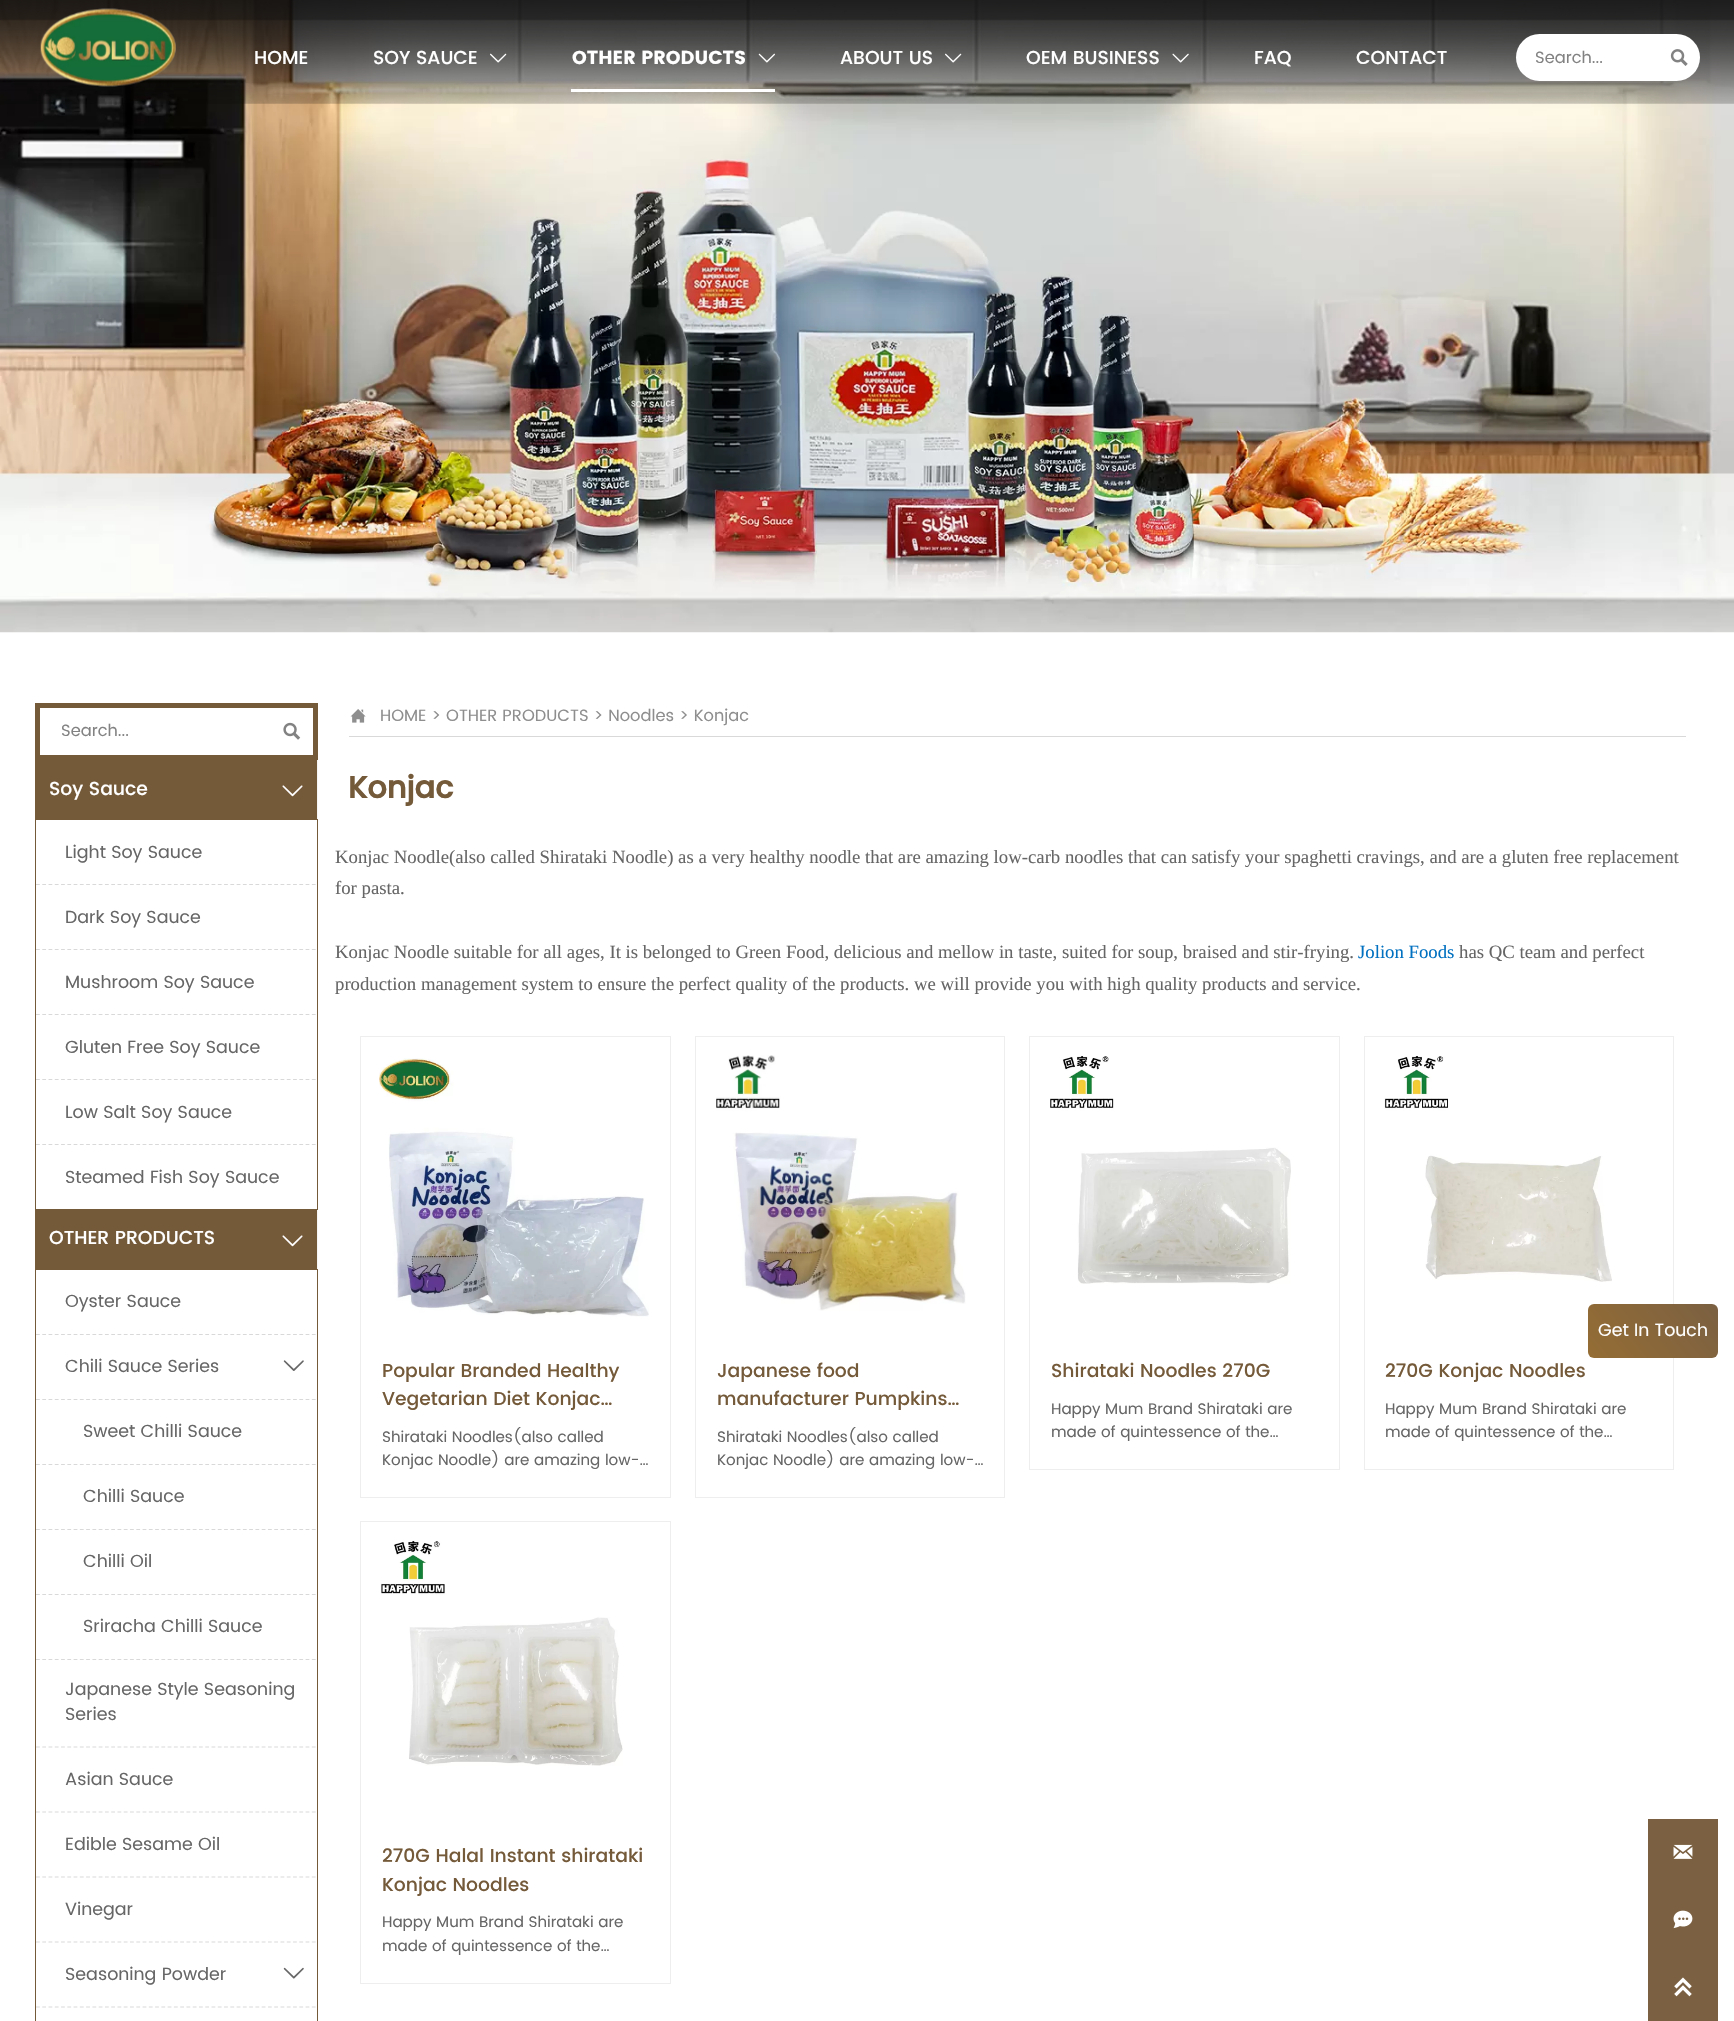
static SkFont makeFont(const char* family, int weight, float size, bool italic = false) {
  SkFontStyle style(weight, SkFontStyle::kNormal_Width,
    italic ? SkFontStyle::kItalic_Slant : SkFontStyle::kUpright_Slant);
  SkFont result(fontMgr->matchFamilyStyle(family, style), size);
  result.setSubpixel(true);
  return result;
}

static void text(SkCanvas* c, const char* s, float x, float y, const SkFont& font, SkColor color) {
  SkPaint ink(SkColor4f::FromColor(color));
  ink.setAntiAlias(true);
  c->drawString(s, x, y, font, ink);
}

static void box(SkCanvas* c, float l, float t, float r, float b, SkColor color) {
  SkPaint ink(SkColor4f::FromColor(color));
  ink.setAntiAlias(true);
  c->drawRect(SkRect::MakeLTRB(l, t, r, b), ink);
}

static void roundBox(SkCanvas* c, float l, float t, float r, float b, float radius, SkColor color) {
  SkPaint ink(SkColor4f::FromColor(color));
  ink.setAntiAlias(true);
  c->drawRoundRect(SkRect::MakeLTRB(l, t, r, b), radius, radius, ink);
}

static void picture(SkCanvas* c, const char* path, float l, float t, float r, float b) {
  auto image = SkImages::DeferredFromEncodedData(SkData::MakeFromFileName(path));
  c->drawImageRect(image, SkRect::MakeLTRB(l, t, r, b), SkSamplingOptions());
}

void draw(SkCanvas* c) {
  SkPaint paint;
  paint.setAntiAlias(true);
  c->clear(0xffffffff);
  picture(c, "img_09.png", 0, 0, 1734, 633);
  picture(c, "img_01.png", 0, 0, 1734, 21);
  picture(c, "img_02.png", 0, 0, 1734, 104);
  picture(c, "img_03.png", 40, 8, 176, 87);
  SkFont face1 = makeFont("Poppins", 500, 18.75f);
  text(c, "HOME", 254, 64, face1, 0xffffffff);
  text(c, "SOY SAUCE", 373, 64, face1, 0xffffffff);
  picture(c, "img_04.png", 490, 53, 507, 63);
  box(c, 571, 89, 775, 92, 0xffffffff);
  SkFont face2 = makeFont("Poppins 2", 700, 18.75f);
  text(c, "OTHER PRODUCTS", 572, 64, face2, 0xffffffff);
  picture(c, "img_05.png", 758, 53, 775, 63);
  text(c, "ABOUT US", 840, 64, face1, 0xffffffff);
  picture(c, "img_06.png", 945, 53, 962, 63);
  text(c, "OEM BUSINESS", 1026, 64, face1, 0xffffffff);
  picture(c, "img_07.png", 1172, 53, 1189, 63);
  text(c, "FAQ", 1254, 64, face1, 0xffffffff);
  text(c, "CONTACT", 1356, 64, face1, 0xffffffff);
  roundBox(c, 1516, 34, 1700, 81, 23.5f, 0xffffffff);
  SkFont face3 = makeFont("Poppins", 400, 16.4f);
  text(c, "Search...", 1535, 63, face3, 0xff828282);
  picture(c, "img_08.png", 1670, 49, 1688, 66);
  box(c, 317, 760, 318, 1269, 0xfff5f5f5);
  box(c, 35, 703, 318, 760, 0xff755a3a);
  box(c, 40, 708, 313, 755, 0xffffffff);
  text(c, "Search...", 61, 736, face3, 0xff828282);
  picture(c, "img_10.png", 283, 722, 301, 740);
  box(c, 35, 760, 317, 819, 0xff755a3a);
  text(c, "Soy Sauce", 49, 795, face1, 0xffffffff);
  picture(c, "img_11.png", 282, 785, 303, 797);
  paint.setStyle(SkPaint::kStroke_Style);
  paint.setStrokeWidth(1);
  paint.setColor(0xff755a3a);
  c->drawRect(SkRect::MakeLTRB(35.5f, 819.5f, 317.5f, 1209.5f), paint);
  paint.setStrokeWidth(1.2f);
  paint.setColor(0xffd9d9d9);
  paint.setPathEffect(SkDashPathEffect::Make({{3.75f, 2.52f}}, 0));
  c->drawPath(SkPathBuilder().moveTo(36, 884.5f).lineTo(316, 884.5f).detach(), paint);
  paint.setPathEffect(nullptr);
  SkFont face4 = makeFont("Poppins", 400, 17.6f);
  text(c, "Light Soy Sauce", 65, 858, face4, 0xff666666);
  paint.setPathEffect(SkDashPathEffect::Make({{3.75f, 2.52f}}, 0));
  c->drawPath(SkPathBuilder().moveTo(36, 949.5f).lineTo(316, 949.5f).detach(), paint);
  paint.setPathEffect(nullptr);
  text(c, "Dark Soy Sauce", 65, 923, face4, 0xff666666);
  paint.setPathEffect(SkDashPathEffect::Make({{3.75f, 2.52f}}, 0));
  c->drawPath(SkPathBuilder().moveTo(36, 1014.5f).lineTo(316, 1014.5f).detach(), paint);
  paint.setPathEffect(nullptr);
  text(c, "Mushroom Soy Sauce", 65, 988, face4, 0xff666666);
  paint.setPathEffect(SkDashPathEffect::Make({{3.75f, 2.52f}}, 0));
  c->drawPath(SkPathBuilder().moveTo(36, 1079.5f).lineTo(316, 1079.5f).detach(), paint);
  paint.setPathEffect(nullptr);
  text(c, "Gluten Free Soy Sauce", 65, 1053, face4, 0xff666666);
  paint.setPathEffect(SkDashPathEffect::Make({{3.75f, 2.52f}}, 0));
  c->drawPath(SkPathBuilder().moveTo(36, 1144.5f).lineTo(316, 1144.5f).detach(), paint);
  paint.setPathEffect(nullptr);
  text(c, "Low Salt Soy Sauce", 65, 1118, face4, 0xff666666);
  text(c, "Steamed Fish Soy Sauce", 65, 1183, face4, 0xff666666);
  box(c, 35, 1210, 317, 1269, 0xff755a3a);
  text(c, "OTHER PRODUCTS", 49, 1244, face1, 0xffffffff);
  picture(c, "img_11.png", 282, 1235, 303, 1247);
  paint.setStrokeWidth(1);
  paint.setColor(0xff755a3a);
  c->drawRect(SkRect::MakeLTRB(35.5f, 1269.5f, 317.5f, 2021.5f), paint);
  paint.setStrokeWidth(1.2f);
  paint.setColor(0xffd9d9d9);
  paint.setPathEffect(SkDashPathEffect::Make({{3.75f, 2.52f}}, 0));
  c->drawPath(SkPathBuilder().moveTo(36, 1334.5f).lineTo(316, 1334.5f).detach(), paint);
  paint.setPathEffect(nullptr);
  text(c, "Oyster Sauce", 65, 1307, face4, 0xff666666);
  paint.setPathEffect(SkDashPathEffect::Make({{3.75f, 2.52f}}, 0));
  c->drawPath(SkPathBuilder().moveTo(36, 1399.5f).lineTo(316, 1399.5f).detach(), paint);
  paint.setPathEffect(nullptr);
  text(c, "Chili Sauce Series", 65, 1372, face4, 0xff666666);
  picture(c, "img_12.png", 283, 1360, 304, 1371);
  paint.setPathEffect(SkDashPathEffect::Make({{3.75f, 2.52f}}, 0));
  c->drawPath(SkPathBuilder().moveTo(36, 1464.5f).lineTo(316, 1464.5f).detach(), paint);
  paint.setPathEffect(nullptr);
  text(c, "Sweet Chilli Sauce", 83, 1437, face4, 0xff666666);
  paint.setPathEffect(SkDashPathEffect::Make({{3.75f, 2.52f}}, 0));
  c->drawPath(SkPathBuilder().moveTo(36, 1529.5f).lineTo(316, 1529.5f).detach(), paint);
  paint.setPathEffect(nullptr);
  text(c, "Chilli Sauce", 83, 1502, face4, 0xff666666);
  paint.setPathEffect(SkDashPathEffect::Make({{3.75f, 2.52f}}, 0));
  c->drawPath(SkPathBuilder().moveTo(36, 1594.5f).lineTo(316, 1594.5f).detach(), paint);
  paint.setPathEffect(nullptr);
  text(c, "Chilli Oil", 83, 1567, face4, 0xff666666);
  paint.setPathEffect(SkDashPathEffect::Make({{3.75f, 2.52f}}, 0));
  c->drawPath(SkPathBuilder().moveTo(36, 1659.5f).lineTo(316, 1659.5f).detach(), paint);
  paint.setPathEffect(nullptr);
  text(c, "Sriracha Chilli Sauce", 83, 1632, face4, 0xff666666);
  paint.setPathEffect(SkDashPathEffect::Make({{3.75f, 2.52f}}, 0));
  c->drawPath(SkPathBuilder().moveTo(36, 1747).lineTo(316, 1747).detach(), paint);
  paint.setPathEffect(nullptr);
  text(c, "Japanese Style Seasoning", 65, 1695, face4, 0xff666666);
  text(c, "Series", 65, 1720, face4, 0xff666666);
  paint.setPathEffect(SkDashPathEffect::Make({{3.75f, 2.52f}}, 0));
  c->drawPath(SkPathBuilder().moveTo(36, 1812).lineTo(316, 1812).detach(), paint);
  paint.setPathEffect(nullptr);
  text(c, "Asian Sauce", 65, 1785, face4, 0xff666666);
  paint.setPathEffect(SkDashPathEffect::Make({{3.75f, 2.52f}}, 0));
  c->drawPath(SkPathBuilder().moveTo(36, 1877).lineTo(316, 1877).detach(), paint);
  paint.setPathEffect(nullptr);
  text(c, "Edible Sesame Oil", 65, 1850, face4, 0xff666666);
  paint.setPathEffect(SkDashPathEffect::Make({{3.75f, 2.52f}}, 0));
  c->drawPath(SkPathBuilder().moveTo(36, 1942).lineTo(316, 1942).detach(), paint);
  paint.setPathEffect(nullptr);
  text(c, "Vinegar", 65, 1915, face4, 0xff666666);
  paint.setPathEffect(SkDashPathEffect::Make({{3.75f, 2.52f}}, 0));
  c->drawPath(SkPathBuilder().moveTo(36, 2007).lineTo(316, 2007).detach(), paint);
  paint.setPathEffect(nullptr);
  text(c, "Seasoning Powder", 65, 1980, face4, 0xff666666);
  picture(c, "img_13.png", 283, 1967, 304, 1979);
  box(c, 349, 736, 1686, 737, 0xffd9d9d9);
  picture(c, "img_14.png", 350, 709, 366, 723);
  text(c, "HOME > OTHER PRODUCTS > Noodles > Konjac", 380, 721, face3, 0xff8e8e8e);
  SkFont face5 = makeFont("Poppins", 700, 30.5f);
  text(c, "Konjac", 348, 798, face5, 0xff755a3a);
  SkFont face6 = makeFont("Liberation Serif", 400, 18.75f);
  text(c, "Konjac Noodle(also called Shirataki Noodle) as a very healthy noodle that are amazing low-carb noodles that can satisfy your spaghetti cravings, and are a gluten free replacement", 335, 863, face6, 0xff666666);
  text(c, "for pasta.", 335, 894, face6, 0xff666666);
  text(c, "Konjac Noodle suitable for all ages, It is belonged to Green Food, delicious and mellow in taste, suited for soup, braised and stir-frying.", 335, 958, face6, 0xff666666);
  text(c, "Jolion Foods", 1358, 958, face6, 0xff0070c0);
  text(c, "has QC team and perfect", 1459, 958, face6, 0xff666666);
  text(c, "production management system to ensure the perfect quality of the products. we will provide you with high quality products and service.", 335, 990, face6, 0xff666666);
  paint.setStrokeWidth(1);
  paint.setColor(0xffeeeeee);
  c->drawRect(SkRect::MakeLTRB(360.5f, 1036.5f, 670.5f, 1497.5f), paint);
  picture(c, "img_15.png", 379, 1058, 649, 1317);
  text(c, "Popular Branded Healthy", 382, 1377, face1, 0xff755a3a);
  text(c, "Vegetarian Diet Konjac…", 382, 1405, face1, 0xff755a3a);
  SkFont face7 = makeFont("Poppins", 400, 15.25f);
  text(c, "Shirataki Noodles(also called", 382, 1442, face7, 0xff666666);
  text(c, "Konjac Noodle) are amazing low-…", 382, 1465, face7, 0xff666666);
  c->drawRect(SkRect::MakeLTRB(695.5f, 1036.5f, 1004.5f, 1497.5f), paint);
  picture(c, "img_16.png", 716, 1055, 966, 1311);
  text(c, "Japanese food", 717, 1377, face1, 0xff755a3a);
  text(c, "manufacturer Pumpkins…", 717, 1405, face1, 0xff755a3a);
  text(c, "Shirataki Noodles(also called", 717, 1442, face7, 0xff666666);
  text(c, "Konjac Noodle) are amazing low-…", 717, 1465, face7, 0xff666666);
  c->drawRect(SkRect::MakeLTRB(1029.5f, 1036.5f, 1339.5f, 1469.5f), paint);
  picture(c, "img_17.png", 1050, 1056, 1291, 1284);
  text(c, "Shirataki Noodles 270G", 1051, 1377, face1, 0xff755a3a);
  text(c, "Happy Mum Brand Shirataki are", 1051, 1414, face7, 0xff666666);
  text(c, "made of quintessence of the…", 1051, 1437, face7, 0xff666666);
  c->drawRect(SkRect::MakeLTRB(1364.5f, 1036.5f, 1673.5f, 1469.5f), paint);
  picture(c, "img_18.png", 1384, 1056, 1612, 1282);
  text(c, "270G Konjac Noodles", 1385, 1377, face1, 0xff755a3a);
  text(c, "Happy Mum Brand Shirataki are", 1385, 1414, face7, 0xff666666);
  text(c, "made of quintessence of the…", 1385, 1437, face7, 0xff666666);
  c->drawRect(SkRect::MakeLTRB(360.5f, 1521.5f, 670.5f, 1983.5f), paint);
  picture(c, "img_19.png", 381, 1541, 623, 1766);
  text(c, "270G Halal Instant shirataki", 382, 1862, face1, 0xff755a3a);
  text(c, "Konjac Noodles", 382, 1891, face1, 0xff755a3a);
  text(c, "Happy Mum Brand Shirataki are", 382, 1927, face7, 0xff666666);
  text(c, "made of quintessence of the…", 382, 1951, face7, 0xff666666);
  paint.setStyle(SkPaint::kFill_Style);
  {
    const SkColor colors[] = {0xf5755a3a, 0xf591672c};
    const float stops[] = {0, 1};
    const SkPoint ends[] = {{1705, 1288}, {1600, 1373}};
    paint.setShader(SkGradientShader::MakeLinear(ends, colors, stops, 2, SkTileMode::kClamp));
    paint.setAlpha(255);
  }
  c->drawRoundRect(SkRect::MakeLTRB(1588, 1304, 1718, 1358), 6, 6, paint);
  text(c, "Get In Touch", 1598, 1336, face4, 0xffffffff);
  box(c, 1648, 1819, 1718, 2021, 0xff7b6142);
  picture(c, "img_20.png", 1673, 1844, 1693, 1859);
  picture(c, "img_21.png", 1673, 1910, 1693, 1929);
  picture(c, "img_22.png", 1674, 1977, 1692, 1997);
}
